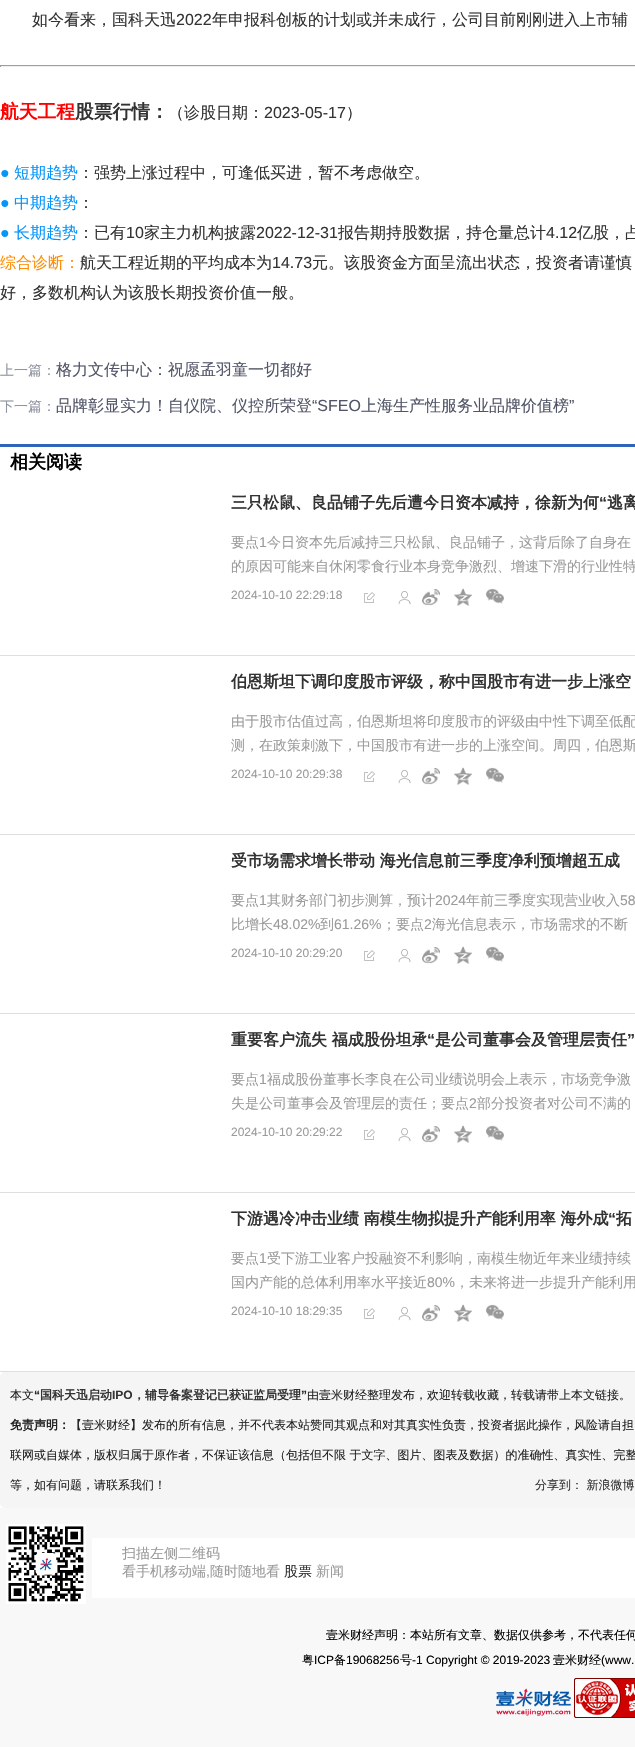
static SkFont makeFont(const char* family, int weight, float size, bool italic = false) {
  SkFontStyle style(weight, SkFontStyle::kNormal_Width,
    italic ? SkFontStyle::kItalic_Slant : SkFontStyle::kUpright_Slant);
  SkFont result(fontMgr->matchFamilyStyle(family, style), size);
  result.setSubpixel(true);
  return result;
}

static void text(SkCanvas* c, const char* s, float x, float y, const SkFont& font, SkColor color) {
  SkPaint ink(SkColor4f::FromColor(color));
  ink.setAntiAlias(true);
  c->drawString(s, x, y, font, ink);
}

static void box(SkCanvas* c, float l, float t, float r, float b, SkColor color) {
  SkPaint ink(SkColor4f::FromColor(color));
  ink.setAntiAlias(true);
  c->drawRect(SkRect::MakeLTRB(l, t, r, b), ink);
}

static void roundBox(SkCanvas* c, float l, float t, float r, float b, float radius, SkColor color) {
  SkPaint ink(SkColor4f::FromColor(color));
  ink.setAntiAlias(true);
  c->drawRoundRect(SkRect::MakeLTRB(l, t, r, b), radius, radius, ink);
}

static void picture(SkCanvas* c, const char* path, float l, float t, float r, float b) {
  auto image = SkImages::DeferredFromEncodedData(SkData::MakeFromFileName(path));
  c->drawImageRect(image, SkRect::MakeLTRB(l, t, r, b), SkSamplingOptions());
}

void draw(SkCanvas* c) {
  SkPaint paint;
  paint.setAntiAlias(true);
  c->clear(0xffffffff);
  SkFont face1 = makeFont("WenQuanYi Zen Hei", 500, 16);
  text(c, "如今看来，国科天迅", 32, 25, face1, 0xff333333);
  SkFont face2 = makeFont("Liberation Sans", 400, 16);
  text(c, "2022", 176, 25, face2, 0xff333333);
  text(c, "年申报科创板的计划或并未成行，公司目前刚刚进入上市辅", 212, 25, face1, 0xff333333);
  box(c, 0, 65, 635, 66, 0xff9f9f9f);
  box(c, 0, 66, 635, 67, 0xffeeeeee);
  box(c, 0, 65, 1, 67, 0xff9f9f9f);
  SkFont face3 = makeFont("WenQuanYi Zen Hei", 700, 18.75f);
  text(c, "航天工程", 0, 118, face3, 0xffff0000);
  text(c, "股票行情：", 75, 118, face3, 0xff333333);
  text(c, "（诊股日期：", 168, 118, face1, 0xff333333);
  text(c, "2023-05-17", 264, 118, face2, 0xff333333);
  text(c, "）", 346, 118, face1, 0xff333333);
  text(c, "●", 0, 178, face2, 0xff0695f9);
  text(c, "短期趋势", 14, 178, face1, 0xff0695f9);
  text(c, "：强势上涨过程中，可逢低买进，暂不考虑做空。", 78, 178, face1, 0xff333333);
  text(c, "●", 0, 208, face2, 0xff0695f9);
  text(c, "中期趋势", 14, 208, face1, 0xff0695f9);
  text(c, "：", 78, 208, face1, 0xff333333);
  text(c, "●", 0, 238, face2, 0xff0695f9);
  text(c, "长期趋势", 14, 238, face1, 0xff0695f9);
  text(c, "：已有", 78, 238, face1, 0xff333333);
  text(c, "10", 126, 238, face2, 0xff333333);
  text(c, "家主力机构披露", 144, 238, face1, 0xff333333);
  text(c, "2022-12-31", 256, 238, face2, 0xff333333);
  text(c, "报告期持股数据，持仓量总计", 338, 238, face1, 0xff333333);
  text(c, "4.12", 546, 238, face2, 0xff333333);
  text(c, "亿股，占", 577, 238, face1, 0xff333333);
  text(c, "综合诊断：", 0, 268, face1, 0xffff8c00);
  text(c, "航天工程近期的平均成本为", 80, 268, face1, 0xff333333);
  text(c, "14.73", 272, 268, face2, 0xff333333);
  text(c, "元。该股资金方面呈流出状态，投资者请谨慎", 312, 268, face1, 0xff333333);
  text(c, "好，多数机构认为该股长期投资价值一般。", 0, 298, face1, 0xff333333);
  SkFont face4 = makeFont("WenQuanYi Zen Hei", 500, 14);
  text(c, "上一篇：", 0, 375, face4, 0xff9194a2);
  text(c, "格力文传中心：祝愿孟羽童一切都好", 56, 375, face1, 0xff515567);
  text(c, "下一篇：", 0, 411, face4, 0xff9194a2);
  text(c, "品牌彰显实力！自仪院、仪控所荣登", 56, 411, face1, 0xff515567);
  text(c, "“SFEO", 312, 411, face2, 0xff515567);
  text(c, "上海生产性服务业品牌价值榜", 361, 411, face1, 0xff515567);
  text(c, "”", 569, 411, face2, 0xff515567);
  box(c, 0, 444, 635, 447, 0xff3064bb);
  SkFont face5 = makeFont("WenQuanYi Zen Hei", 700, 18);
  text(c, "相关阅读", 10, 468, face5, 0xff000000);
  box(c, 0, 655, 635, 656, 0xffdedede);
  SkFont face6 = makeFont("WenQuanYi Zen Hei", 700, 16);
  text(c, "三只松鼠、良品铺子先后遭今日资本减持，徐新为何", 231, 508, face6, 0xff333333);
  SkFont face7 = makeFont("Liberation Sans", 700, 16);
  text(c, "“", 599, 508, face7, 0xff333333);
  text(c, "逃离", 607, 508, face6, 0xff333333);
  text(c, "要点", 231, 547, face4, 0xff9b9b9b);
  SkFont face8 = makeFont("Liberation Sans", 400, 14);
  text(c, "1", 259, 547, face8, 0xff9b9b9b);
  text(c, "今日资本先后减持三只松鼠、良品铺子，这背后除了自身在", 267, 547, face4, 0xff9b9b9b);
  text(c, "的原因可能来自休闲零食行业本身竞争激烈、增速下滑的行业性特", 231, 571, face4, 0xff9b9b9b);
  SkFont face9 = makeFont("Liberation Sans", 400, 12);
  text(c, "2024-10-10 22:29:18", 231, 599, face9, 0xff9b9b9b);
  picture(c, "img_01.png", 364, 592, 375, 603);
  picture(c, "img_02.png", 398, 591, 411, 605);
  picture(c, "img_03.png", 422, 589, 440, 606);
  picture(c, "img_04.png", 454, 588, 472, 606);
  picture(c, "img_05.png", 486, 588, 504, 604);
  box(c, 0, 834, 635, 835, 0xffdedede);
  text(c, "伯恩斯坦下调印度股市评级，称中国股市有进一步上涨空", 231, 687, face6, 0xff333333);
  text(c, "由于股市估值过高，伯恩斯坦将印度股市的评级由中性下调至低配", 231, 726, face4, 0xff9b9b9b);
  text(c, "测，在政策刺激下，中国股市有进一步的上涨空间。周四，伯恩斯", 231, 750, face4, 0xff9b9b9b);
  text(c, "2024-10-10 20:29:38", 231, 778, face9, 0xff9b9b9b);
  picture(c, "img_01.png", 364, 771, 375, 782);
  picture(c, "img_02.png", 398, 770, 411, 784);
  picture(c, "img_03.png", 422, 768, 440, 785);
  picture(c, "img_04.png", 454, 767, 472, 785);
  picture(c, "img_05.png", 486, 767, 504, 783);
  box(c, 0, 1013, 635, 1014, 0xffdedede);
  text(c, "受市场需求增长带动 海光信息前三季度净利预增超五成", 231, 866, face6, 0xff333333);
  text(c, "要点", 231, 905, face4, 0xff9b9b9b);
  text(c, "1", 259, 905, face8, 0xff9b9b9b);
  text(c, "其财务部门初步测算，预计", 267, 905, face4, 0xff9b9b9b);
  text(c, "2024", 435, 905, face8, 0xff9b9b9b);
  text(c, "年前三季度实现营业收入", 466, 905, face4, 0xff9b9b9b);
  text(c, "58", 620, 905, face8, 0xff9b9b9b);
  text(c, "比增长", 231, 929, face4, 0xff9b9b9b);
  text(c, "48.02%", 273, 929, face8, 0xff9b9b9b);
  text(c, "到", 320, 929, face4, 0xff9b9b9b);
  text(c, "61.26%", 334, 929, face8, 0xff9b9b9b);
  text(c, "；要点", 382, 929, face4, 0xff9b9b9b);
  text(c, "2", 424, 929, face8, 0xff9b9b9b);
  text(c, "海光信息表示，市场需求的不断", 432, 929, face4, 0xff9b9b9b);
  text(c, "2024-10-10 20:29:20", 231, 957, face9, 0xff9b9b9b);
  picture(c, "img_01.png", 364, 950, 375, 961);
  picture(c, "img_02.png", 398, 949, 411, 963);
  picture(c, "img_03.png", 422, 947, 440, 964);
  picture(c, "img_04.png", 454, 946, 472, 964);
  picture(c, "img_05.png", 486, 946, 504, 962);
  box(c, 0, 1192, 635, 1193, 0xffdedede);
  text(c, "重要客户流失 福成股份坦承", 231, 1045, face6, 0xff333333);
  text(c, "“", 427, 1045, face7, 0xff333333);
  text(c, "是公司董事会及管理层责任", 435, 1045, face6, 0xff333333);
  text(c, "”", 627, 1045, face7, 0xff333333);
  text(c, "要点", 231, 1084, face4, 0xff9b9b9b);
  text(c, "1", 259, 1084, face8, 0xff9b9b9b);
  text(c, "福成股份董事长李良在公司业绩说明会上表示，市场竞争激", 267, 1084, face4, 0xff9b9b9b);
  text(c, "失是公司董事会及管理层的责任；要点", 231, 1108, face4, 0xff9b9b9b);
  text(c, "2", 469, 1108, face8, 0xff9b9b9b);
  text(c, "部分投资者对公司不满的", 477, 1108, face4, 0xff9b9b9b);
  text(c, "2024-10-10 20:29:22", 231, 1136, face9, 0xff9b9b9b);
  picture(c, "img_01.png", 364, 1129, 375, 1140);
  picture(c, "img_02.png", 398, 1128, 411, 1142);
  picture(c, "img_03.png", 422, 1126, 440, 1143);
  picture(c, "img_04.png", 454, 1125, 472, 1143);
  picture(c, "img_05.png", 486, 1125, 504, 1141);
  box(c, 0, 1371, 635, 1372, 0xffdedede);
  text(c, "下游遇冷冲击业绩 南模生物拟提升产能利用率 海外成", 231, 1224, face6, 0xff333333);
  text(c, "“", 608, 1224, face7, 0xff333333);
  text(c, "拓", 616, 1224, face6, 0xff333333);
  text(c, "要点", 231, 1263, face4, 0xff9b9b9b);
  text(c, "1", 259, 1263, face8, 0xff9b9b9b);
  text(c, "受下游工业客户投融资不利影响，南模生物近年来业绩持续", 267, 1263, face4, 0xff9b9b9b);
  text(c, "国内产能的总体利用率水平接近", 231, 1287, face4, 0xff9b9b9b);
  text(c, "80%", 427, 1287, face8, 0xff9b9b9b);
  text(c, "，未来将进一步提升产能利用", 455, 1287, face4, 0xff9b9b9b);
  text(c, "2024-10-10 18:29:35", 231, 1315, face9, 0xff9b9b9b);
  picture(c, "img_01.png", 364, 1308, 375, 1319);
  picture(c, "img_02.png", 398, 1307, 411, 1321);
  picture(c, "img_03.png", 422, 1305, 440, 1322);
  picture(c, "img_04.png", 454, 1304, 472, 1322);
  picture(c, "img_05.png", 486, 1304, 504, 1320);
  roundBox(c, 0, 1372, 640, 1508, 5, 0xfff6f5f5);
  SkFont face10 = makeFont("WenQuanYi Zen Hei", 500, 12);
  text(c, "本文", 10, 1399, face10, 0xff222222);
  SkFont face11 = makeFont("Liberation Sans", 700, 12);
  text(c, "“", 34, 1399, face11, 0xff222222);
  SkFont face12 = makeFont("WenQuanYi Zen Hei", 700, 12);
  text(c, "国科天迅启动", 40, 1399, face12, 0xff333333);
  text(c, "IPO", 112, 1399, face11, 0xff333333);
  text(c, "，辅导备案登记已获证监局受理", 133, 1399, face12, 0xff333333);
  text(c, "”", 301, 1399, face11, 0xff222222);
  text(c, "由壹米财经整理发布，欢迎转载收藏，转载请带上本文链接。", 307, 1399, face10, 0xff222222);
  text(c, "免责声明：", 10, 1429, face12, 0xff222222);
  text(c, "【壹米财经】发布的所有信息，并不代表本站赞同其观点和对其真实性负责，投资者据此操作，风险请自担", 70, 1429, face10, 0xff222222);
  text(c, "联网或自媒体，版权归属于原作者，不保证该信息（包括但不限 于文字、图片、图表及数据）的准确性、真实性、完整", 10, 1459, face10, 0xff222222);
  text(c, "等，如有问题，请联系我们！", 10, 1489, face10, 0xff222222);
  text(c, "分享到： 新浪微博", 535, 1489, face10, 0xff333333);
  box(c, 0, 1508, 635, 1747, 0xfff8f8f8);
  box(c, 92, 1538, 635, 1598, 0xffffffff);
  picture(c, "img_06.png", 6, 1524, 86, 1604);
  text(c, "扫描左侧二维码", 122, 1558, face4, 0xff9b9b9b);
  text(c, "看手机移动端", 122, 1576, face4, 0xff9b9b9b);
  text(c, ",", 206, 1576, face8, 0xff9b9b9b);
  text(c, "随时随地看", 210, 1576, face4, 0xff9b9b9b);
  text(c, "股票", 284, 1576, face4, 0xff333333);
  text(c, "新闻", 316, 1576, face4, 0xff9b9b9b);
  text(c, "壹米财经声明：本站所有文章、数据仅供参考，不代表任何", 326, 1639, face10, 0xff000000);
  text(c, "粤", 302, 1664, face10, 0xff000000);
  text(c, "ICP", 314, 1664, face9, 0xff000000);
  text(c, "备", 334, 1664, face10, 0xff000000);
  text(c, "19068256", 346, 1664, face9, 0xff000000);
  text(c, "号", 400, 1664, face10, 0xff000000);
  text(c, "-1 Copyright © 2019-2023", 412, 1664, face9, 0xff000000);
  text(c, "壹米财经", 553, 1664, face10, 0xff000000);
  text(c, "(www.", 601, 1664, face9, 0xff000000);
  picture(c, "img_07.png", 496, 1688, 571, 1716);
  picture(c, "img_08.png", 574, 1678, 635, 1718);
}
